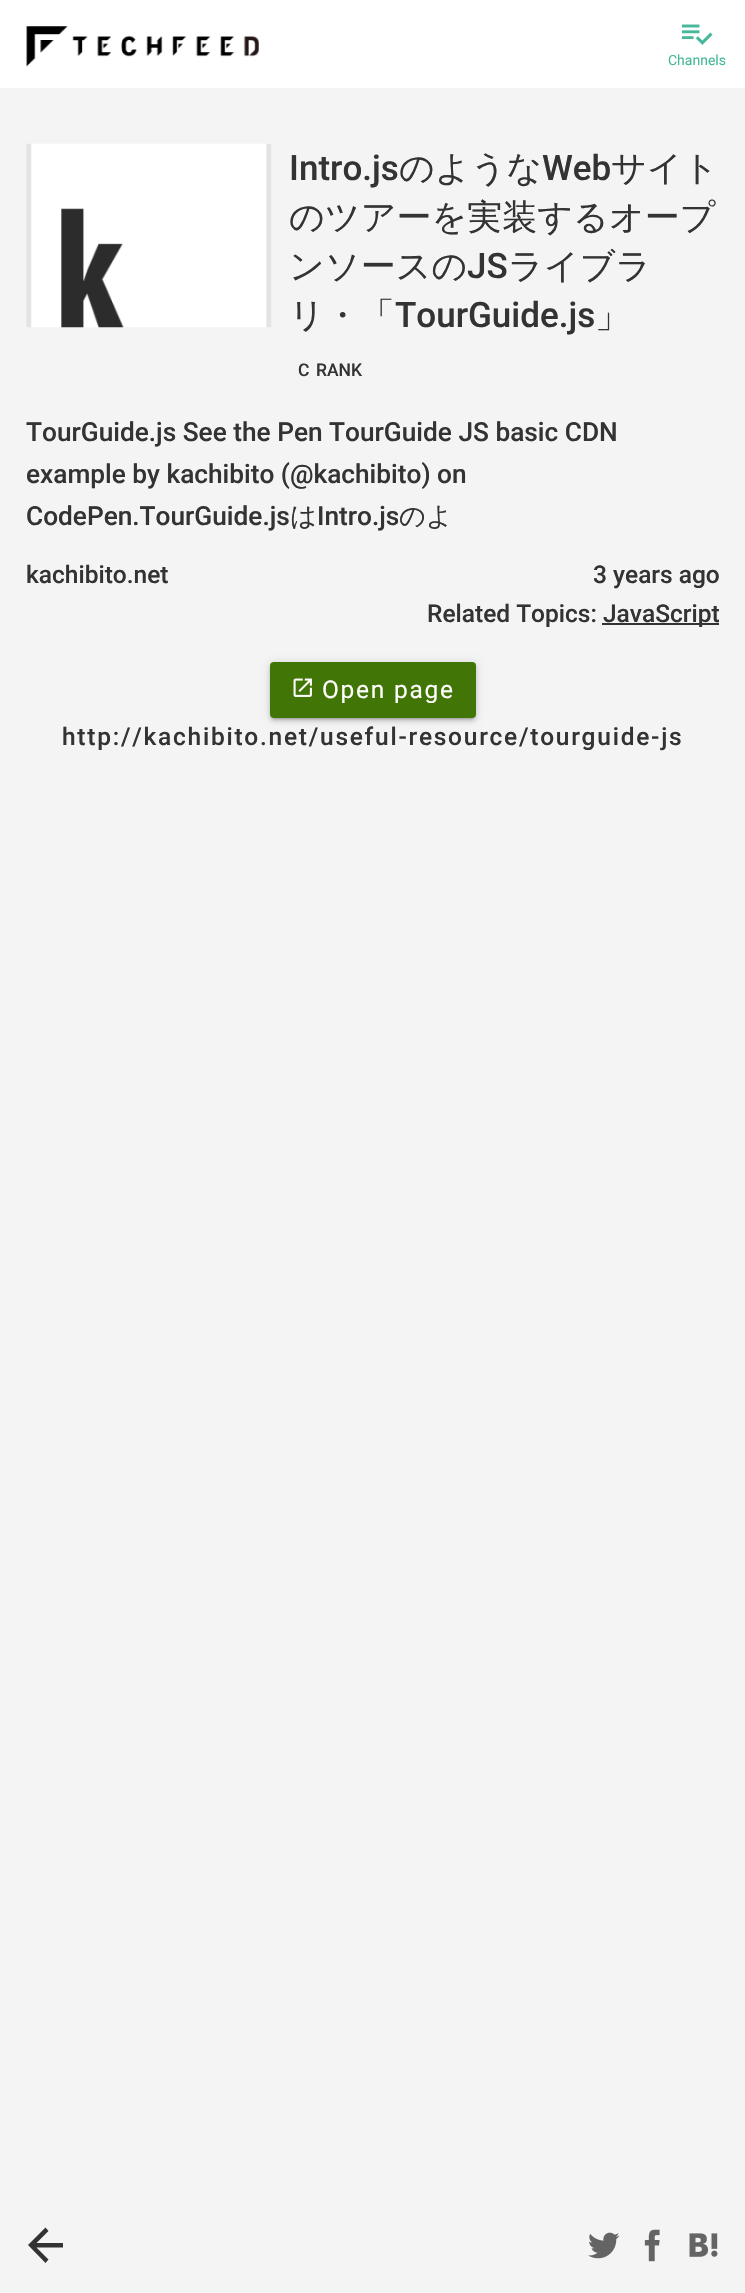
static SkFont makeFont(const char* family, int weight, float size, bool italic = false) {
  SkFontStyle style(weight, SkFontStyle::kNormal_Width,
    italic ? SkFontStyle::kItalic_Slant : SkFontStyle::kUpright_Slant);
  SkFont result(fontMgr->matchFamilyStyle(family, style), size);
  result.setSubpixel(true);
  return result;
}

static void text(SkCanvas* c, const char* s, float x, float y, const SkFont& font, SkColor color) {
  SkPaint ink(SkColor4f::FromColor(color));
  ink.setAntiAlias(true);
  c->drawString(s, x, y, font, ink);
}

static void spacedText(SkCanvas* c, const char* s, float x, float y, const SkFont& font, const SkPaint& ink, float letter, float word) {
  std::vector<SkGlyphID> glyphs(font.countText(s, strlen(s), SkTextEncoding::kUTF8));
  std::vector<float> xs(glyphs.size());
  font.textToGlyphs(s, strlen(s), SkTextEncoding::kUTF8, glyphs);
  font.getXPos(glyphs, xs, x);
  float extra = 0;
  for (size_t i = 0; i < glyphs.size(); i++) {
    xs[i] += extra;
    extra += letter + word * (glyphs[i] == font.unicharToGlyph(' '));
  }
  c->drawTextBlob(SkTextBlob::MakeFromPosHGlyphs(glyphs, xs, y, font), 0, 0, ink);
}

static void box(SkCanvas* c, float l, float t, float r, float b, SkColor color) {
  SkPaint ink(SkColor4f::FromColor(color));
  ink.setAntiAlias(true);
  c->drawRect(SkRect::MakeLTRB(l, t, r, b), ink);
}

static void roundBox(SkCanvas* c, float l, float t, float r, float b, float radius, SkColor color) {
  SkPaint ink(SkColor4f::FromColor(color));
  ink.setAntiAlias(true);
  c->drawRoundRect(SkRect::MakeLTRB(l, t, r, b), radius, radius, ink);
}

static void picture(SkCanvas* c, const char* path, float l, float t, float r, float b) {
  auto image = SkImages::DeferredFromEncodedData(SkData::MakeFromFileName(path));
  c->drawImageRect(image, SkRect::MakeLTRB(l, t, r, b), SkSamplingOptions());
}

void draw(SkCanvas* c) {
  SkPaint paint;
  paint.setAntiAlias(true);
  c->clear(0xfff4f4f4);
  box(c, 0, 0, 745, 88, 0xffffffff);
  picture(c, "img_01.png", 26, 26, 259, 67);
  picture(c, "img_02.png", 681, 24, 713, 45);
  SkFont face1 = makeFont("Roboto", 400, 14);
  text(c, "Channels", 668, 65, face1, 0xff47b89a);
  picture(c, "img_03.png", 26, 143, 272, 328);
  SkFont face2 = makeFont("Roboto", 500, 35);
  text(c, "Intro.js", 289, 180, face2, 0xff333333);
  SkFont face3 = makeFont("WenQuanYi Zen Hei", 500, 35);
  text(c, "のような", 399, 180, face3, 0xff333333);
  text(c, "Web", 542, 180, face2, 0xff333333);
  text(c, "サイト", 611, 180, face3, 0xff333333);
  text(c, "のツアーを実装するオープ", 289, 229, face3, 0xff333333);
  text(c, "ンソースの", 289, 278, face3, 0xff333333);
  text(c, "JS", 467, 278, face2, 0xff333333);
  text(c, "ライブラ", 508, 278, face3, 0xff333333);
  text(c, "リ・「", 289, 327, face3, 0xff333333);
  text(c, "TourGuide.js", 395, 327, face2, 0xff333333);
  text(c, "」", 595, 327, face3, 0xff333333);
  SkFont face4 = makeFont("Roboto", 500, 17.5f);
  text(c, "C", 298, 376, face4, 0xff333333);
  text(c, "RANK", 316, 376, face4, 0xff333333);
  SkFont face5 = makeFont("Roboto", 500, 26.25f);
  text(c, "TourGuide.js See the Pen TourGuide JS basic CDN", 26, 441, face5, 0xff333333);
  text(c, "example by kachibito (@kachibito) on", 26, 483, face5, 0xff333333);
  text(c, "CodePen.TourGuide.js", 26, 525, face5, 0xff333333);
  SkFont face6 = makeFont("WenQuanYi Zen Hei", 500, 26.25f);
  text(c, "は", 290, 525, face6, 0xff333333);
  text(c, "Intro.js", 317, 525, face5, 0xff333333);
  text(c, "のよ", 399, 525, face6, 0xff333333);
  SkFont face7 = makeFont("Roboto", 500, 24.5f);
  text(c, "kachibito.net", 26, 583, face7, 0xff333333);
  text(c, "3 years ago", 593, 583, face7, 0xff333333);
  text(c, "Related Topics:", 427, 622, face7, 0xff333333);
  box(c, 602, 623, 719, 625, 0xff333333);
  text(c, "JavaScript", 603, 622, face7, 0xff333333);
  paint.setColor(0xff333333);
  c->drawPath(SkPathBuilder().moveTo(63, 2243).lineTo(63, 2247.5f).lineTo(36.5f, 2247.5f).lineTo(48.5f, 2259.5f).lineTo(45.5f, 2263).lineTo(28, 2245).lineTo(45.5f, 2227.5f).lineTo(48.5f, 2231).lineTo(36.5f, 2243).close().detach(), paint);
  picture(c, "img_04.png", 588, 2232, 620, 2259);
  picture(c, "img_05.png", 644, 2229, 660, 2262);
  picture(c, "img_06.png", 689, 2233, 718, 2257);
  paint.setColor(0x1f000000);
  paint.setMaskFilter(SkMaskFilter::MakeBlur(kNormal_SkBlurStyle, 4.5f));
  c->drawRoundRect(SkRect::MakeLTRB(270, 663, 476, 719), 4, 4, paint);
  paint.setMaskFilter(nullptr);
  paint.setColor(0x33000000);
  paint.setMaskFilter(SkMaskFilter::MakeBlur(kNormal_SkBlurStyle, 1));
  c->drawRect(SkRect::MakeLTRB(273, 670, 473, 719), paint);
  paint.setMaskFilter(nullptr);
  paint.setColor(0x24000000);
  paint.setMaskFilter(SkMaskFilter::MakeBlur(kNormal_SkBlurStyle, 2));
  c->drawRoundRect(SkRect::MakeLTRB(270, 665, 476, 721), 4, 4, paint);
  paint.setMaskFilter(nullptr);
  roundBox(c, 270, 662, 476, 718, 4, 0xff417505);
  picture(c, "img_07.png", 293, 678, 312, 697);
  SkFont face8 = makeFont("Roboto", 400, 24.5f);
  paint.setColor(0xffffffff);
  spacedText(c, "Open page", 322, 698, face8, paint, 1.75f, 0);
  paint.setColor(0xff333333);
  spacedText(c, "http://kachibito.net/useful-resource/tourguide-js", 62, 745, face7, paint, 1.75f, 0);
}
